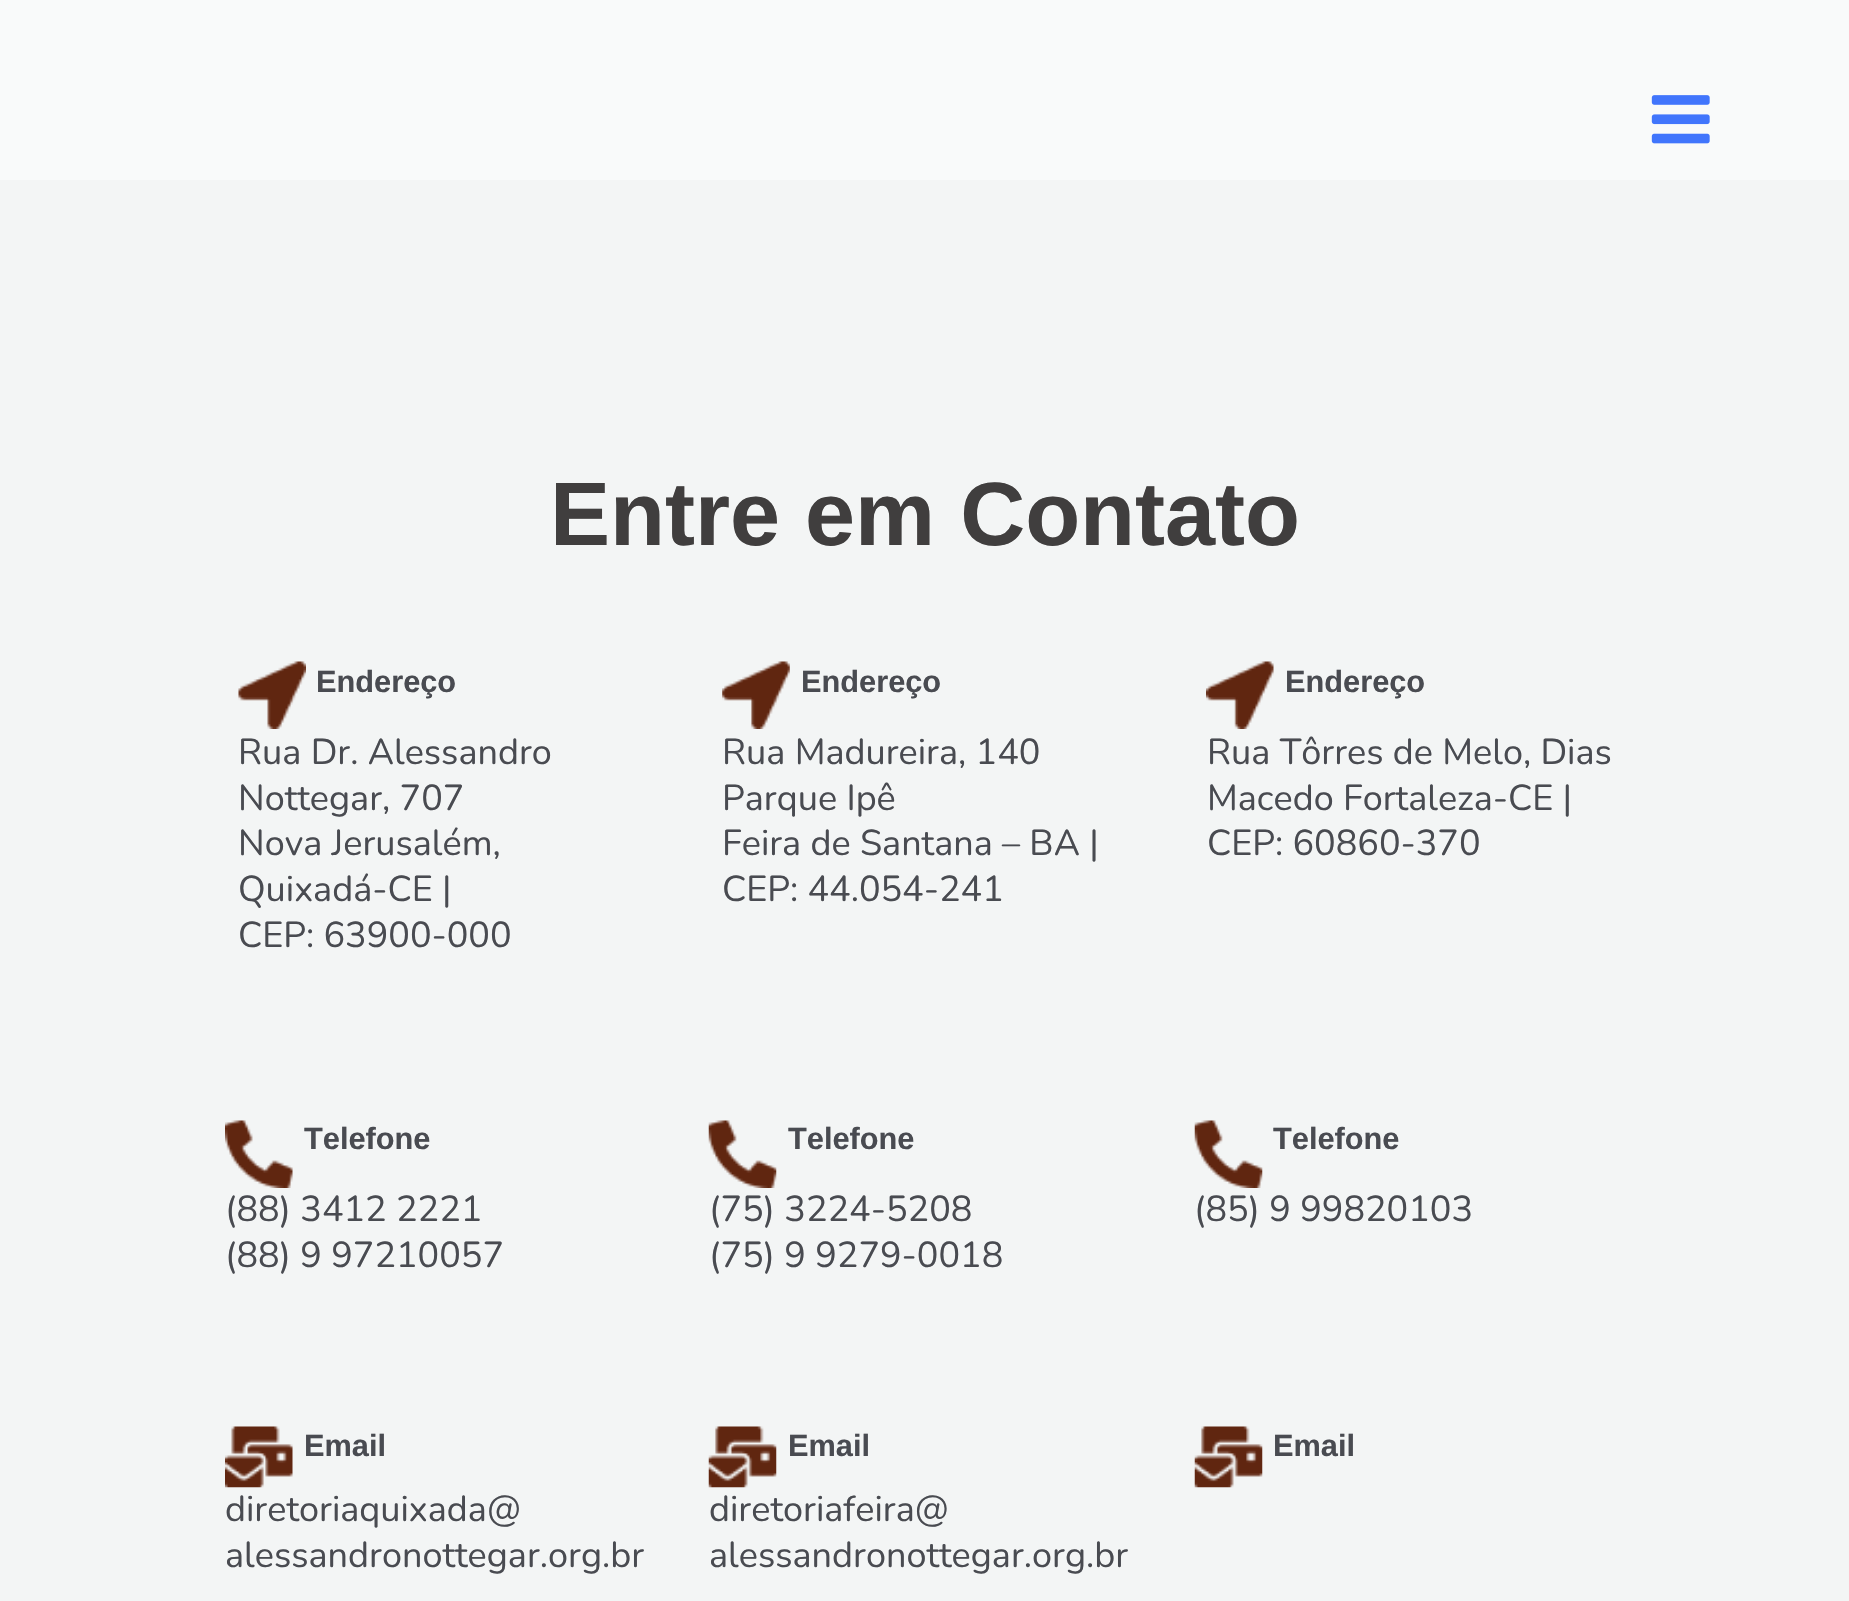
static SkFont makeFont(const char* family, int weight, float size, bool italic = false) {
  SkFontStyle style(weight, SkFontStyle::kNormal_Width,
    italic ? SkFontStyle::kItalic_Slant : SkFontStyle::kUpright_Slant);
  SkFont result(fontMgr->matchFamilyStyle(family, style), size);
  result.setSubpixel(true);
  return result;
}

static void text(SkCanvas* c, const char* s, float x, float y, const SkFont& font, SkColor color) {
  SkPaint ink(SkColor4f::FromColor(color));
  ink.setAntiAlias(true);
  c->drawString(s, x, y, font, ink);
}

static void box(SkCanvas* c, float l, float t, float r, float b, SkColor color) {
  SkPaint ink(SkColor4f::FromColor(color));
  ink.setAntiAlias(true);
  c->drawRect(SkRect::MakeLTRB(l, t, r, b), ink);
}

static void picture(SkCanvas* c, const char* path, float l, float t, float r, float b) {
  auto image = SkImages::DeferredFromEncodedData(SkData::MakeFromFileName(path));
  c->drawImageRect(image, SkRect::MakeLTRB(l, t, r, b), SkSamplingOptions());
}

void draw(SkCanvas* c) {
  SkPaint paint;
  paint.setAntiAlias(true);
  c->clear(0xfff3f5f5);
  box(c, 0, 0, 1849, 180, 0xfff9fafa);
  picture(c, "img_01.png", 1651, 95, 1710, 144);
  SkFont face1 = makeFont("Liberation Sans", 700, 90);
  text(c, "Entre em Contato", 550, 545, face1, 0xff403e3e);
  picture(c, "img_02.png", 238, 661, 306, 729);
  SkFont face2 = makeFont("Liberation Sans", 700, 30.75f);
  text(c, "Endereço", 316, 692, face2, 0xff494b51);
  SkFont face3 = makeFont("Nunito", 400, 36);
  text(c, "Rua Dr. Alessandro", 238, 764, face3, 0xff494b51);
  text(c, "Nottegar, 707", 238, 810, face3, 0xff494b51);
  text(c, "Nova Jerusalém,", 238, 855, face3, 0xff494b51);
  text(c, "Quixadá-CE |", 238, 901, face3, 0xff494b51);
  text(c, "CEP: 63900-000", 238, 947, face3, 0xff494b51);
  picture(c, "img_03.png", 722, 661, 790, 729);
  text(c, "Endereço", 801, 692, face2, 0xff494b51);
  text(c, "Rua Madureira, 140", 722, 764, face3, 0xff494b51);
  text(c, "Parque Ipê", 722, 810, face3, 0xff494b51);
  text(c, "Feira de Santana – BA |", 722, 855, face3, 0xff494b51);
  text(c, "CEP: 44.054-241", 722, 901, face3, 0xff494b51);
  picture(c, "img_04.png", 1206, 661, 1274, 729);
  text(c, "Endereço", 1285, 692, face2, 0xff494b51);
  text(c, "Rua Tôrres de Melo, Dias", 1207, 764, face3, 0xff494b51);
  text(c, "Macedo Fortaleza-CE |", 1207, 810, face3, 0xff494b51);
  text(c, "CEP: 60860-370", 1207, 855, face3, 0xff494b51);
  picture(c, "img_05.png", 225, 1120, 293, 1188);
  text(c, "Telefone", 304, 1149, face2, 0xff494b51);
  text(c, "(88) 3412 2221", 225, 1221, face3, 0xff494b51);
  text(c, "(88) 9 97210057", 225, 1267, face3, 0xff494b51);
  picture(c, "img_06.png", 708, 1120, 777, 1188);
  text(c, "Telefone", 788, 1149, face2, 0xff494b51);
  text(c, "(75) 3224-5208", 709, 1221, face3, 0xff494b51);
  text(c, "(75) 9 9279-0018", 709, 1267, face3, 0xff494b51);
  picture(c, "img_07.png", 1194, 1120, 1263, 1188);
  text(c, "Telefone", 1273, 1149, face2, 0xff494b51);
  text(c, "(85) 9 99820103", 1194, 1221, face3, 0xff494b51);
  picture(c, "img_08.png", 225, 1426, 293, 1488);
  text(c, "Email", 304, 1456, face2, 0xff494b51);
  text(c, "diretoriaquixada@", 225, 1521, face3, 0xff494b51);
  text(c, "alessandronottegar.org.br", 225, 1567, face3, 0xff494b51);
  picture(c, "img_09.png", 708, 1426, 777, 1488);
  text(c, "Email", 788, 1456, face2, 0xff494b51);
  text(c, "diretoriafeira@", 709, 1521, face3, 0xff494b51);
  text(c, "alessandronottegar.org.br", 709, 1567, face3, 0xff494b51);
  picture(c, "img_10.png", 1194, 1426, 1263, 1488);
  text(c, "Email", 1273, 1456, face2, 0xff494b51);
}
